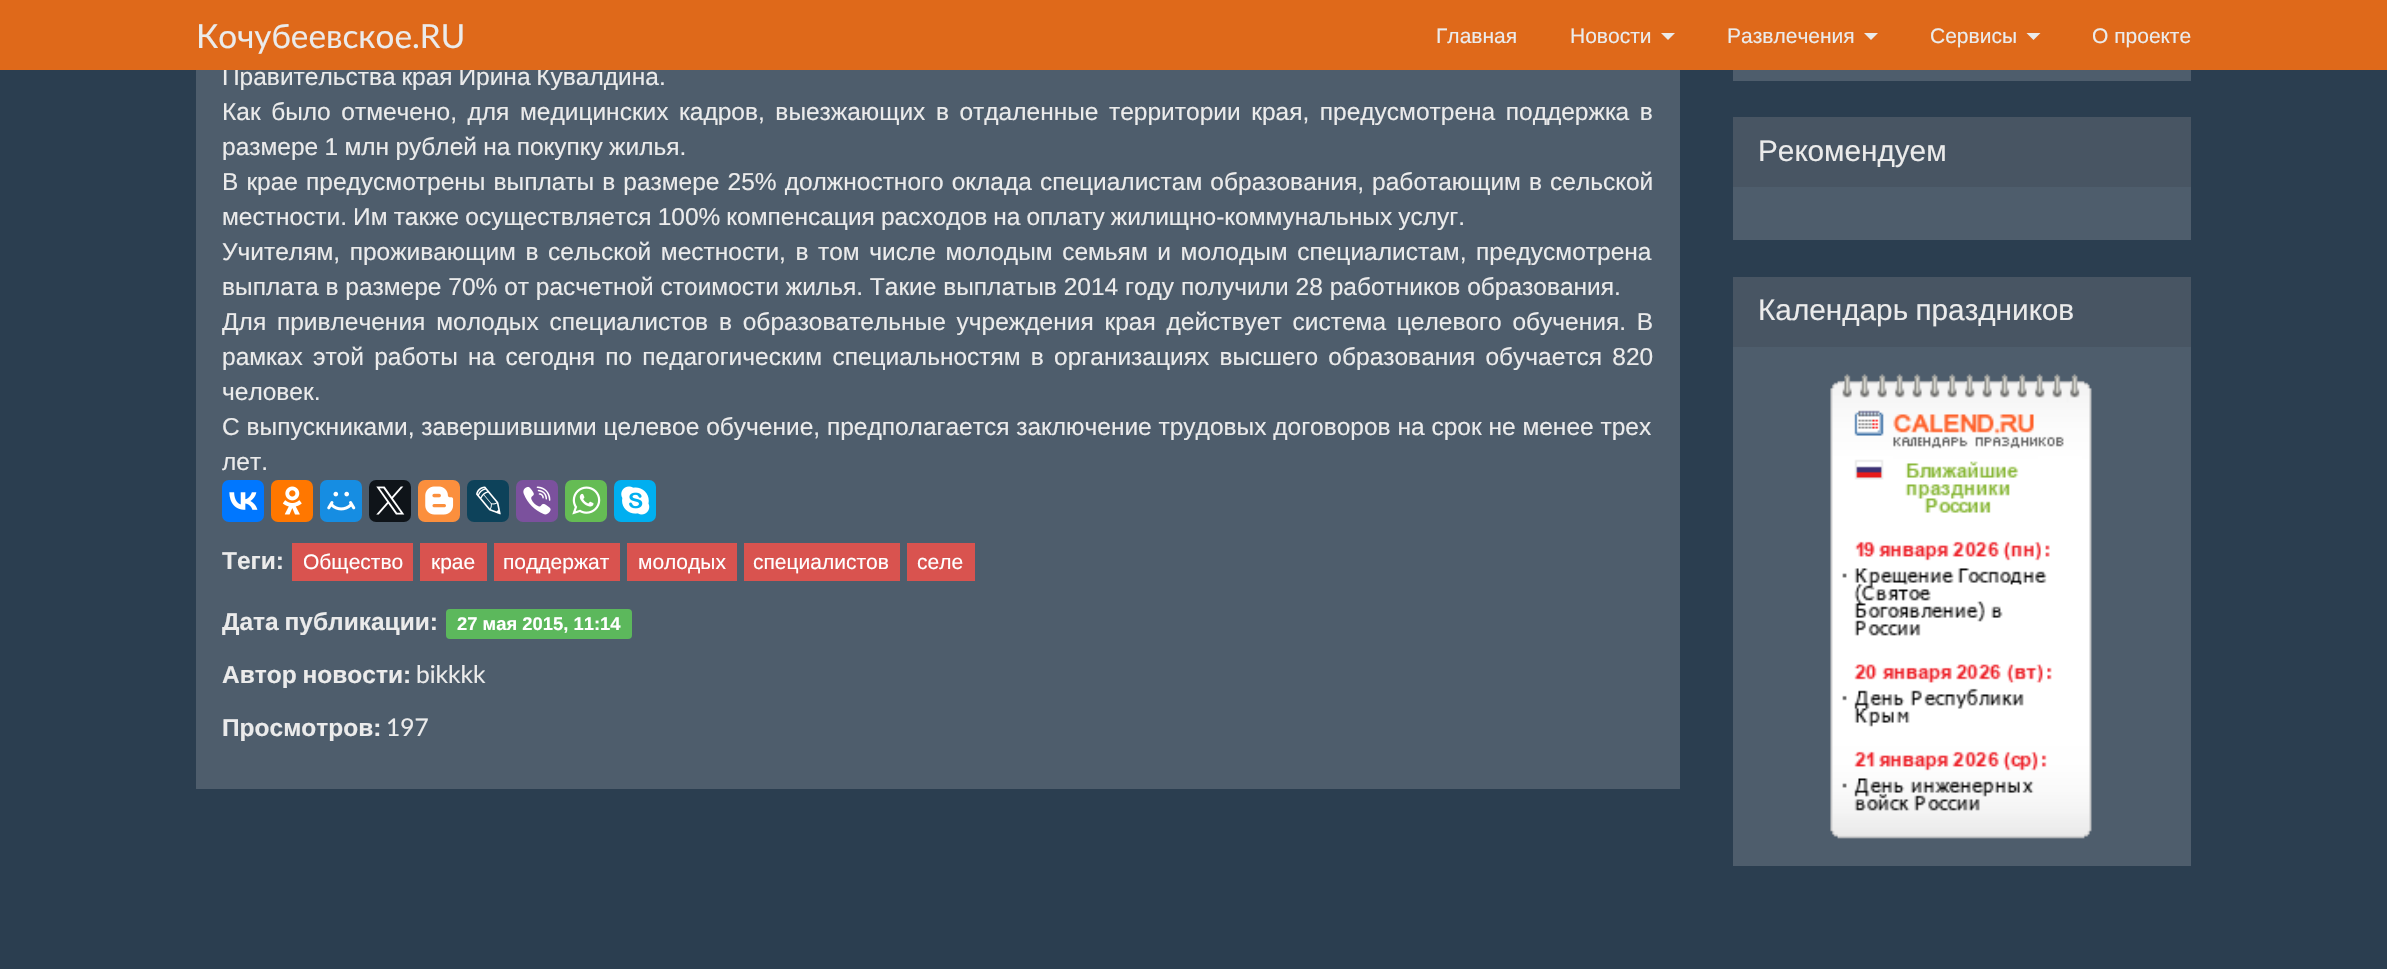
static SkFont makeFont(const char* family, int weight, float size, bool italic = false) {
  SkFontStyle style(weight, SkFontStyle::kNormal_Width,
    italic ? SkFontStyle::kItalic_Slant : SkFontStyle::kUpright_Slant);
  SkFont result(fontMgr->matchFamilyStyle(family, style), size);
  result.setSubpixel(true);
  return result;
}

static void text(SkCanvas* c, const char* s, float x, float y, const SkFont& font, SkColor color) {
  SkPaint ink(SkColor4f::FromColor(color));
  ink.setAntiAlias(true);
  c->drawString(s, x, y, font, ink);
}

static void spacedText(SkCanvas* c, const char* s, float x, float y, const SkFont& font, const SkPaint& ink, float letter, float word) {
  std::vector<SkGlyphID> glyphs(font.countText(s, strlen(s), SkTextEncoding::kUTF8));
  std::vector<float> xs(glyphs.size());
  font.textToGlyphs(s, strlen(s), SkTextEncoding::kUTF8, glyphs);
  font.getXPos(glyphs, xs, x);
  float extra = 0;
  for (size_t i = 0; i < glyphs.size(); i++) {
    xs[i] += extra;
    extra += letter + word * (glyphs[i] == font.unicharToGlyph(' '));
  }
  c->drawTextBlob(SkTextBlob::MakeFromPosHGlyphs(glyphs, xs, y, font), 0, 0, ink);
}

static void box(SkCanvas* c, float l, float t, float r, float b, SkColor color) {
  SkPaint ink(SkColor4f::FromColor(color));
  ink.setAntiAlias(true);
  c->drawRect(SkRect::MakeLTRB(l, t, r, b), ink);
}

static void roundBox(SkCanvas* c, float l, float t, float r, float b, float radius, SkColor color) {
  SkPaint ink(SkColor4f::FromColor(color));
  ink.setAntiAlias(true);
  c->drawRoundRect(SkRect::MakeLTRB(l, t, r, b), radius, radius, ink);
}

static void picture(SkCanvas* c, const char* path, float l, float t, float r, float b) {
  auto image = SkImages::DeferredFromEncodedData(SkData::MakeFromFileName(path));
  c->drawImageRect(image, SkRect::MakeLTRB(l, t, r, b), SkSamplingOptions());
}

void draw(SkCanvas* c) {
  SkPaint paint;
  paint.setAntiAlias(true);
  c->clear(0xff2b3e50);
  box(c, 196, 70, 1680, 789, 0xff4e5d6c);
  SkFont face1 = makeFont("Liberation Sans", 400, 24.5f);
  paint.setColor(0xffebebeb);
  spacedText(c, "Правительства края Ирина Кувалдина.", 222, 85, face1, paint, 0, -1);
  box(c, 0, 0, 2387, 70, 0xffdf691a);
  SkFont face2 = makeFont("Lato", 400, 33.25f);
  text(c, "Кочубеевское.RU", 196, 48, face2, 0xffebebeb);
  SkFont face3 = makeFont("Liberation Sans", 400, 21);
  text(c, "Главная", 1436, 43, face3, 0xffebebeb);
  text(c, "Новости", 1570, 43, face3, 0xffebebeb);
  c->drawPath(SkPathBuilder().moveTo(1661, 33).lineTo(1675, 33).lineTo(1668, 40).close().detach(), paint);
  text(c, "Развлечения", 1727, 43, face3, 0xffebebeb);
  c->drawPath(SkPathBuilder().moveTo(1864, 33).lineTo(1878, 33).lineTo(1871, 40).close().detach(), paint);
  text(c, "Сервисы", 1930, 43, face3, 0xffebebeb);
  c->drawPath(SkPathBuilder().moveTo(2026.5f, 33).lineTo(2040.5f, 33).lineTo(2033.5f, 40).close().detach(), paint);
  text(c, "О проекте", 2092, 43, face3, 0xffebebeb);
  spacedText(c, "Как было отмечено, для медицинских кадров, выезжающих в отдаленные территории края, предусмотрена поддержка в", 222, 120, face1, paint, 0, 3.75f);
  spacedText(c, "размере 1 млн рублей на покупку жилья.", 222, 155, face1, paint, 0, -0.5f);
  spacedText(c, "В крае предусмотрены выплаты в размере 25% должностного оклада специалистам образования, работающим в сельской", 222, 190, face1, paint, 0, 1.25f);
  spacedText(c, "местности. Им также осуществляется 100% компенсация расходов на оплату жилищно-коммунальных услуг.", 222, 225, face1, paint, 0, -0.75f);
  spacedText(c, "Учителям, проживающим в сельской местности, в том числе молодым семьям и молодым специалистам, предусмотрена", 222, 260, face1, paint, 0, 2.75f);
  text(c, "выплата в размере 70% от расчетной стоимости жилья. Такие выплатыв 2014 году получили 28 работников образования.", 222, 295, face1, 0xffebebeb);
  spacedText(c, "Для привлечения молодых специалистов в образовательные учреждения края действует система целевого обучения. В", 222, 330, face1, paint, 0, 4);
  spacedText(c, "рамках этой работы на сегодня по педагогическим специальностям в организациях высшего образования обучается 820", 222, 365, face1, paint, 0, 3.4f);
  text(c, "человек.", 222, 400, face1, 0xffebebeb);
  text(c, "С выпускниками, завершившими целевое обучение, предполагается заключение трудовых договоров на срок не менее трех", 222, 435, face1, 0xffebebeb);
  text(c, "лет.", 222, 470, face1, 0xffebebeb);
  roundBox(c, 222, 480, 264, 522, 7, 0xff0077ff);
  picture(c, "img_01.png", 229, 492, 258, 510);
  roundBox(c, 271, 480, 313, 522, 7, 0xffff7700);
  picture(c, "img_02.png", 282, 486, 302, 515);
  roundBox(c, 320, 480, 362, 522, 7, 0xff168de2);
  picture(c, "img_03.png", 327, 491, 356, 511);
  roundBox(c, 369, 480, 411, 522, 7, 0xff0f1419);
  picture(c, "img_04.png", 376, 486, 405, 515);
  roundBox(c, 418, 480, 460, 522, 7, 0xfffb8f3d);
  picture(c, "img_05.png", 425, 486, 454, 515);
  roundBox(c, 467, 480, 509, 522, 7, 0xff0d425a);
  picture(c, "img_06.png", 476, 486, 501, 515);
  roundBox(c, 516, 480, 558, 522, 7, 0xff7b519d);
  picture(c, "img_07.png", 523, 486, 551, 515);
  roundBox(c, 565, 480, 607, 522, 7, 0xff65bc54);
  picture(c, "img_08.png", 572, 486, 601, 515);
  roundBox(c, 614, 480, 656, 522, 7, 0xff00aff0);
  picture(c, "img_09.png", 621, 486, 650, 515);
  SkFont face4 = makeFont("Liberation Sans", 700, 24.5f);
  text(c, "Теги:", 222, 569, face4, 0xffebebeb);
  box(c, 292, 543, 413, 581, 0xffd9534f);
  text(c, "Общество", 303, 569, face3, 0xffffffff);
  box(c, 420, 543, 487, 581, 0xffd9534f);
  text(c, "крае", 431, 569, face3, 0xffffffff);
  box(c, 494, 543, 620, 581, 0xffd9534f);
  text(c, "поддержат", 503, 569, face3, 0xffffffff);
  box(c, 627, 543, 737, 581, 0xffd9534f);
  text(c, "молодых", 638, 569, face3, 0xffffffff);
  box(c, 744, 543, 900, 581, 0xffd9534f);
  text(c, "специалистов", 753, 569, face3, 0xffffffff);
  box(c, 907, 543, 975, 581, 0xffd9534f);
  text(c, "селе", 917, 569, face3, 0xffffffff);
  spacedText(c, "Дата публикации:", 222, 630, face4, paint, 0, -1);
  roundBox(c, 446, 609, 632, 639, 4, 0xff5cb85c);
  SkFont face5 = makeFont("Liberation Sans", 700, 18.4f);
  text(c, "27 мая 2015, 11:14", 457, 630, face5, 0xffffffff);
  spacedText(c, "Автор новости:", 222, 683, face4, paint, 0, -1);
  SkFont face6 = makeFont("Lato", 400, 24.5f);
  text(c, "bikkkk", 416, 683, face6, 0xffebebeb);
  text(c, "Просмотров:", 222, 736, face4, 0xffebebeb);
  text(c, "197", 386, 736, face6, 0xffebebeb);
  box(c, 1733, 70, 2191, 81, 0xff4e5d6c);
  box(c, 1733, 187, 2191, 240, 0xff4e5d6c);
  box(c, 1733, 117, 2191, 187, 0xff485563);
  SkFont face7 = makeFont("Liberation Sans", 400, 29.75f);
  text(c, "Рекомендуем", 1758, 161, face7, 0xffebebeb);
  box(c, 1733, 347, 2191, 866, 0xff4e5d6c);
  box(c, 1733, 277, 2191, 347, 0xff485563);
  spacedText(c, "Календарь праздников", 1758, 320, face7, paint, 0, -1);
  picture(c, "img_10.png", 1830, 373, 2092, 839);
}
